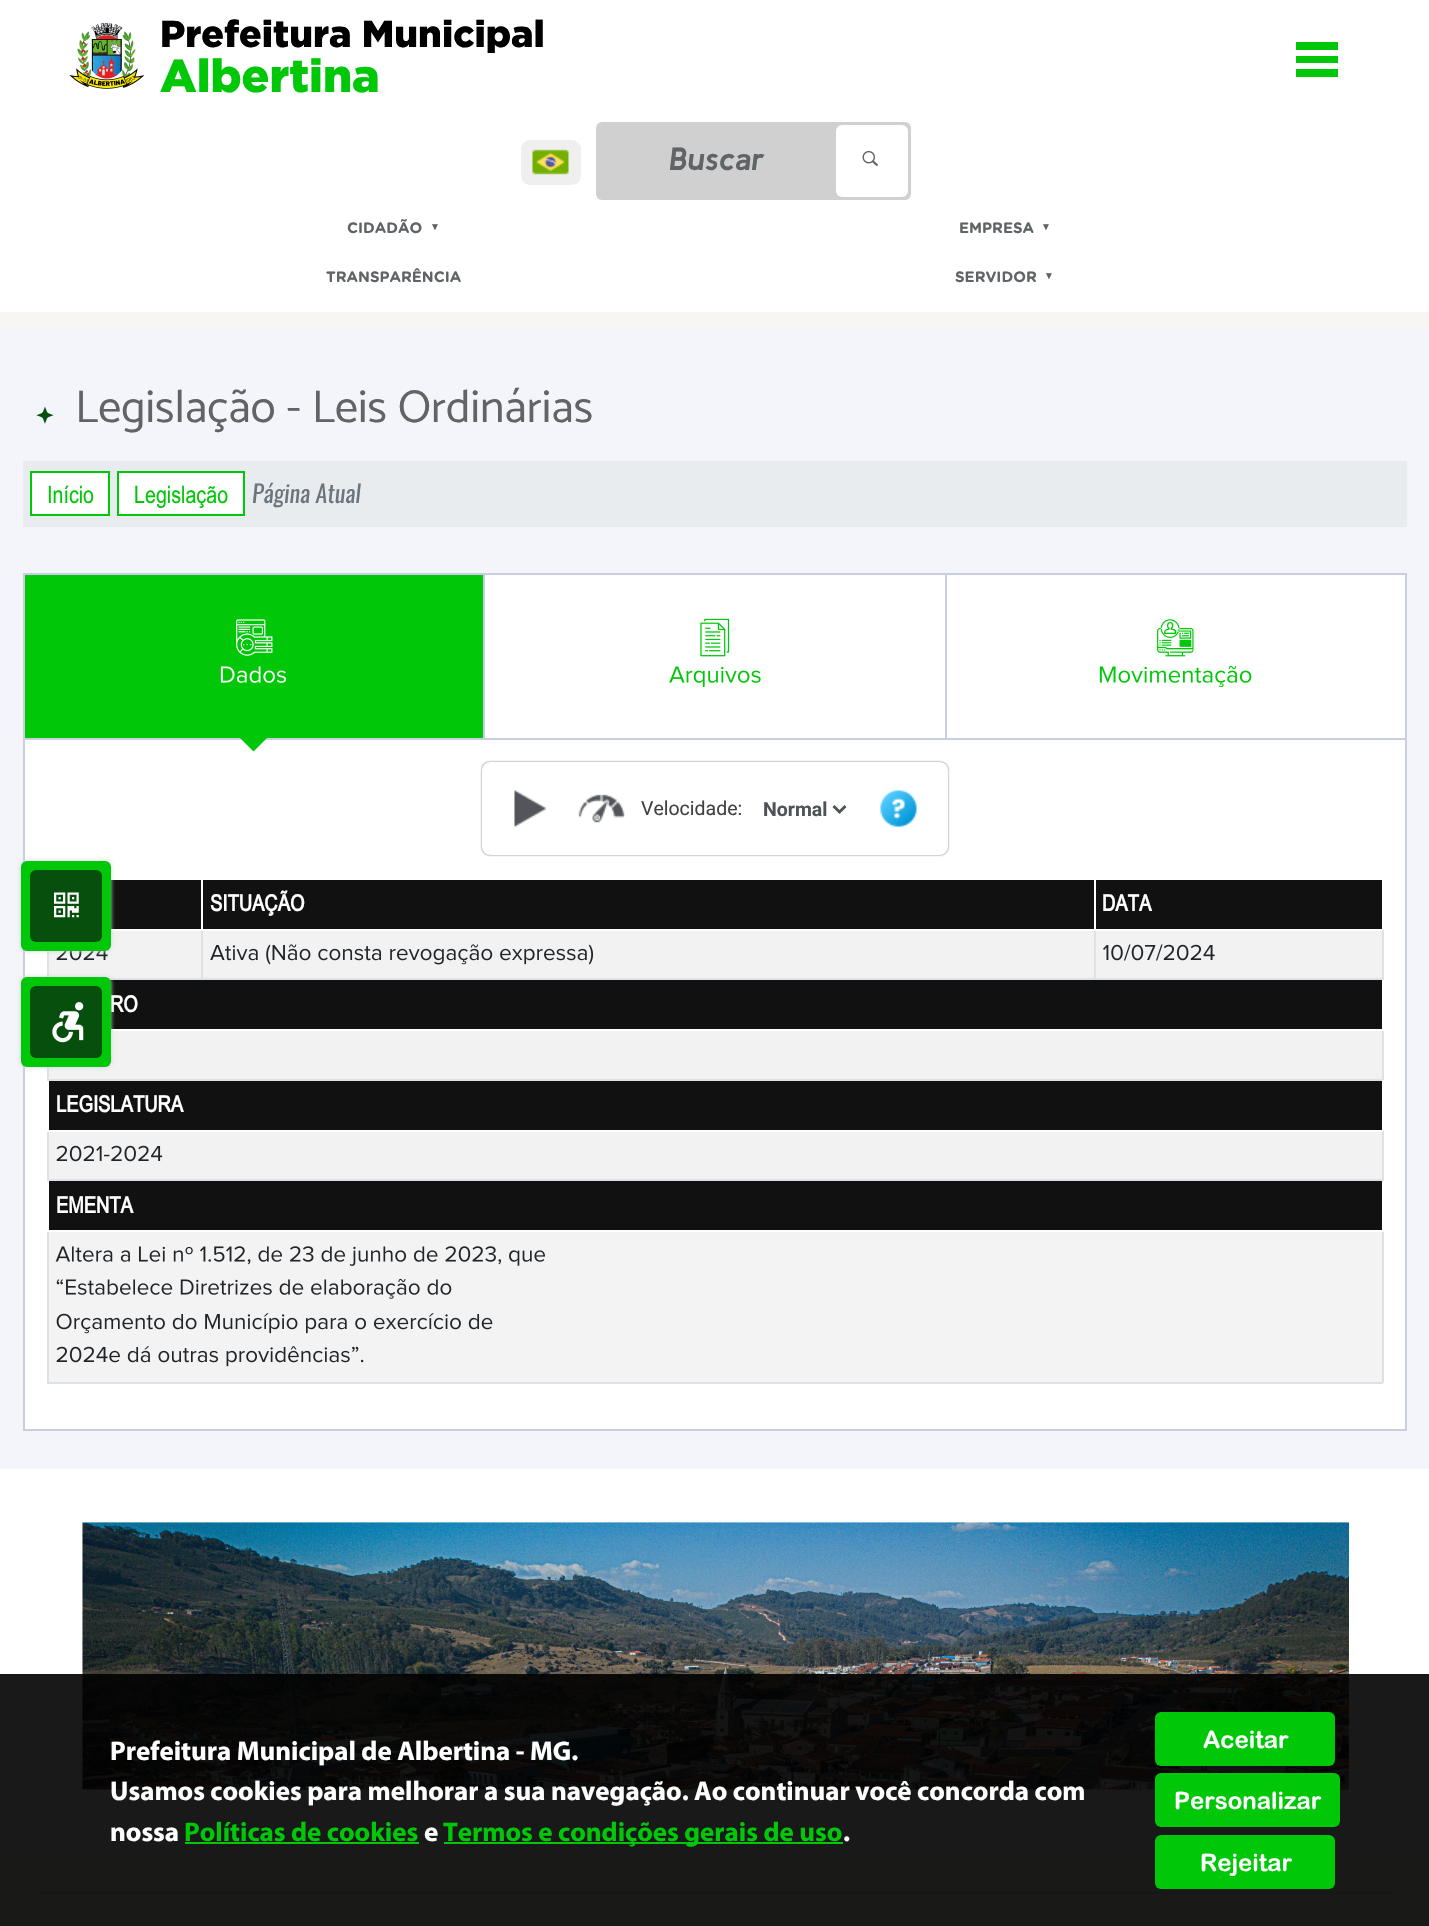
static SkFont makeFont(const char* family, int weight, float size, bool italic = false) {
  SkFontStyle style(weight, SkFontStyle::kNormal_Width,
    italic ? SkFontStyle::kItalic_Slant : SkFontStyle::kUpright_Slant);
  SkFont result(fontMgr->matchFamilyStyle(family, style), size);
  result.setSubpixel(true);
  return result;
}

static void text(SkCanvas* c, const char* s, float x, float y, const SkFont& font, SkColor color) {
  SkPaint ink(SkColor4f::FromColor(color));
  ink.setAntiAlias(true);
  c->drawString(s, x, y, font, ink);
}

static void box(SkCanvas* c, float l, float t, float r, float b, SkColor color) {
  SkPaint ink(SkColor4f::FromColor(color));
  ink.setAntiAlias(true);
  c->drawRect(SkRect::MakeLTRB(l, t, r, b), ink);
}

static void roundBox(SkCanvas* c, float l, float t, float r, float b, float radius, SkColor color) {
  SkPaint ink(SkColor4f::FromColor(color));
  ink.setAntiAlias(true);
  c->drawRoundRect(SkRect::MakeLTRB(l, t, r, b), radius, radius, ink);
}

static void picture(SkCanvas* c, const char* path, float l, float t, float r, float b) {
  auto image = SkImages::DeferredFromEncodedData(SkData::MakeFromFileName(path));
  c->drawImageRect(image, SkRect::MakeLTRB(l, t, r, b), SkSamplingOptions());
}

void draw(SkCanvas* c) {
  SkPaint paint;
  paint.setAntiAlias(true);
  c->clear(0xfff7f6f2);
  box(c, 0, 0, 1429, 312, 0xffffffff);
  picture(c, "img_01.png", 69, 23, 144, 89);
  SkFont face1 = makeFont("Gotham", 900, 37.5f);
  text(c, "Prefeitura Municipal", 160, 47, face1, 0xff000000);
  SkFont face2 = makeFont("Gotham", 900, 46.1f);
  text(c, "Albertina", 160, 92, face2, 0xff00c707);
  box(c, 1296, 42, 1338, 50, 0xff00c707);
  box(c, 1296, 56, 1338, 63, 0xff00c707);
  box(c, 1296, 69, 1338, 77, 0xff00c707);
  roundBox(c, 521, 140, 581, 185, 9, 0xffefefef);
  picture(c, "img_02.png", 532, 149, 569, 175);
  roundBox(c, 596, 122, 911, 200, 6, 0xffd0d0d0);
  SkFont face3 = makeFont("Kulim Park", 700, 32, true);
  text(c, "Buscar", 669, 170, face3, 0xff606466);
  roundBox(c, 836, 125, 908, 197, 6, 0xffffffff);
  picture(c, "img_03.png", 862, 150, 878, 166);
  SkFont face4 = makeFont("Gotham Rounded", 700, 15);
  text(c, "CIDADÃO", 347, 233, face4, 0xff606466);
  SkFont face5 = makeFont("Liberation Serif", 400, 10);
  text(c, "▼", 430, 230, face5, 0xff606466);
  text(c, "EMPRESA", 959, 233, face4, 0xff606466);
  text(c, "▼", 1041, 230, face5, 0xff606466);
  text(c, "TRANSPARÊNCIA", 326, 282, face4, 0xff606466);
  text(c, "SERVIDOR", 955, 282, face4, 0xff606466);
  text(c, "▼", 1044, 279, face5, 0xff606466);
  box(c, 0, 327, 1429, 1469, 0xfff4f5fa);
  picture(c, "img_04.png", 36, 406, 54, 424);
  SkFont face6 = makeFont("Catamaran", 400, 46.1f);
  text(c, "Legislação - Leis Ordinárias", 75, 422, face6, 0xff606466);
  box(c, 23, 461, 1407, 527, 0xffe9ecef);
  paint.setColor(0xffffffff);
  c->drawRect(SkRect::MakeLTRB(31, 472, 109, 515), paint);
  paint.setStyle(SkPaint::kStroke_Style);
  paint.setStrokeWidth(2);
  paint.setColor(0xff00c707);
  c->drawRect(SkRect::MakeLTRB(31, 472, 109, 515), paint);
  SkFont face7 = makeFont("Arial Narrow", 400, 24);
  text(c, "Início", 47, 503, face7, 0xff00c707);
  paint.setStyle(SkPaint::kFill_Style);
  paint.setColor(0xffffffff);
  c->drawRect(SkRect::MakeLTRB(118, 472, 244, 515), paint);
  paint.setStyle(SkPaint::kStroke_Style);
  paint.setColor(0xff00c707);
  c->drawRect(SkRect::MakeLTRB(118, 472, 244, 515), paint);
  text(c, "Legislação", 134, 503, face7, 0xff00c707);
  SkFont face8 = makeFont("Oswald", 400, 24, true);
  text(c, "Página Atual", 252, 503, face8, 0xff6c757d);
  paint.setStyle(SkPaint::kFill_Style);
  paint.setColor(0xffffffff);
  c->drawRect(SkRect::MakeLTRB(484, 574, 946, 739), paint);
  paint.setStyle(SkPaint::kStroke_Style);
  paint.setColor(0xffc9cee1);
  c->drawRect(SkRect::MakeLTRB(484, 574, 946, 739), paint);
  paint.setStyle(SkPaint::kFill_Style);
  paint.setColor(0xffffffff);
  c->drawRect(SkRect::MakeLTRB(946, 574, 1406, 739), paint);
  paint.setStyle(SkPaint::kStroke_Style);
  paint.setColor(0xffc9cee1);
  c->drawRect(SkRect::MakeLTRB(946, 574, 1406, 739), paint);
  paint.setStyle(SkPaint::kFill_Style);
  paint.setColor(0xffffffff);
  c->drawRect(SkRect::MakeLTRB(24, 739, 1406, 1430), paint);
  paint.setStyle(SkPaint::kStroke_Style);
  paint.setColor(0xffc9cee1);
  c->drawRect(SkRect::MakeLTRB(24, 739, 1406, 1430), paint);
  paint.setStyle(SkPaint::kFill_Style);
  paint.setColor(0xff00c707);
  c->drawRect(SkRect::MakeLTRB(24, 574, 484, 739), paint);
  paint.setStyle(SkPaint::kStroke_Style);
  paint.setColor(0xffc9cee1);
  c->drawRect(SkRect::MakeLTRB(24, 574, 484, 739), paint);
  picture(c, "img_05.png", 236, 619, 273, 656);
  picture(c, "img_06.png", 220, 666, 286, 683);
  paint.setStyle(SkPaint::kFill_Style);
  paint.setColor(0xff00c707);
  c->drawPath(SkPathBuilder().moveTo(238.5f, 736.5f).lineTo(268.5f, 736.5f).lineTo(253.5f, 751.5f).close().detach(), paint);
  picture(c, "img_07.png", 700, 618, 730, 657);
  picture(c, "img_08.png", 669, 666, 761, 687);
  picture(c, "img_09.png", 1157, 619, 1194, 657);
  picture(c, "img_10.png", 1099, 665, 1252, 687);
  paint.setColor(0xff585858);
  paint.setMaskFilter(SkMaskFilter::MakeBlur(kNormal_SkBlurStyle, 1));
  c->drawRoundRect(SkRect::MakeLTRB(482, 762, 948, 855), 8, 8, paint);
  paint.setMaskFilter(nullptr);
  roundBox(c, 482, 762, 948, 855, 8, 0xffffffff);
  picture(c, "img_11.png", 514, 790, 546, 827);
  picture(c, "img_12.png", 578, 794, 625, 823);
  SkFont face9 = makeFont("Roboto", 400, 19.5f);
  text(c, "Velocidade:", 641, 815, face9, 0xff414141);
  paint.setStyle(SkPaint::kStroke_Style);
  paint.setStrokeWidth(3);
  paint.setColor(0xff4f5358);
  c->drawPath(SkPathBuilder().moveTo(833.5f, 806).lineTo(839.5f, 812).lineTo(845.5f, 806).detach(), paint);
  SkFont face10 = makeFont("Roboto", 700, 19.5f);
  text(c, "Normal", 763, 816, face10, 0xff4f5358);
  picture(c, "img_13.png", 880, 790, 917, 827);
  box(c, 1382, 1232, 1384, 1383, 0xffdee2e6);
  box(c, 47, 1382, 1383, 1384, 0xffdee2e6);
  box(c, 47, 951, 49, 1383, 0xffdee2e6);
  box(c, 111, 880, 201, 929, 0xff111111);
  box(c, 203, 880, 1094, 929, 0xff111111);
  box(c, 49, 931, 1382, 978, 0xfff2f2f2);
  box(c, 1382, 929, 1384, 980, 0xffdee2e6);
  box(c, 1094, 978, 1383, 980, 0xffdee2e6);
  box(c, 1094, 929, 1096, 980, 0xffdee2e6);
  box(c, 201, 978, 1095, 980, 0xffdee2e6);
  box(c, 201, 929, 203, 980, 0xffdee2e6);
  box(c, 201, 929, 203, 931, 0xffffffff);
  SkFont face11 = makeFont("Arial Narrow", 700, 22.5f);
  text(c, "SITUAÇÃO", 210, 911, face11, 0xffffffff);
  box(c, 1096, 880, 1382, 929, 0xff111111);
  box(c, 1382, 929, 1384, 930, 0xffffffff);
  box(c, 1094, 929, 1383, 931, 0xffffffff);
  text(c, "DATA", 1102, 911, face11, 0xffffffff);
  box(c, 108, 978, 203, 980, 0xffdee2e6);
  picture(c, "img_14.png", 56, 950, 108, 961);
  picture(c, "img_15.png", 210, 944, 594, 965);
  picture(c, "img_16.png", 1103, 944, 1215, 961);
  box(c, 110, 980, 1382, 1029, 0xff111111);
  box(c, 1382, 1029, 1384, 1080, 0xffdee2e6);
  box(c, 1382, 1029, 1384, 1031, 0xffffffff);
  text(c, "RO", 110, 1012, face11, 0xffffffff);
  box(c, 49, 1031, 1382, 1079, 0xfff2f2f2);
  box(c, 1382, 1130, 1384, 1181, 0xffdee2e6);
  box(c, 1382, 1130, 1384, 1131, 0xffffffff);
  box(c, 47, 1130, 1383, 1132, 0xffffffff);
  box(c, 47, 1079, 49, 1131, 0xffffffff);
  box(c, 47, 1079, 1383, 1081, 0xffdee2e6);
  box(c, 49, 1081, 1382, 1130, 0xff111111);
  text(c, "LEGISLATURA", 56, 1112, face11, 0xffffffff);
  box(c, 49, 1132, 1382, 1179, 0xfff2f2f2);
  box(c, 47, 1179, 49, 1232, 0xffffffff);
  box(c, 47, 1179, 1383, 1181, 0xffdee2e6);
  picture(c, "img_17.png", 56, 1145, 163, 1162);
  box(c, 49, 1181, 1382, 1230, 0xff111111);
  text(c, "EMENTA", 56, 1213, face11, 0xffffffff);
  box(c, 49, 1232, 1382, 1382, 0xfff3f3f3);
  picture(c, "img_18.png", 55, 1246, 545, 1266);
  picture(c, "img_19.png", 56, 1278, 452, 1299);
  picture(c, "img_20.png", 56, 1313, 493, 1334);
  picture(c, "img_21.png", 56, 1346, 364, 1367);
  box(c, 0, 1469, 1429, 1854, 0xffffffff);
  picture(c, "img_22.png", 82, 1522, 1349, 1790);
  box(c, 36, 1892, 1394, 1894, 0xffe8e7e3);
  box(c, 0, 1674, 1429, 1926, 0xe6000000);
  SkFont face12 = makeFont("Myriad", 700, 27);
  text(c, "Prefeitura Municipal de Albertina - MG.", 110, 1760, face12, 0xffffffff);
  text(c, "Usamos cookies para melhorar a sua navegação. Ao continuar você concorda com", 110, 1800, face12, 0xffffffff);
  text(c, "nossa", 110, 1841, face12, 0xffffffff);
  text(c, "Políticas de cookies", 184, 1841, face12, 0xff00c707);
  box(c, 185, 1842, 419, 1844, 0xff00c707);
  text(c, "e", 424, 1841, face12, 0xffffffff);
  box(c, 444, 1842, 843, 1844, 0xff00c707);
  text(c, "Termos e condições gerais de uso", 443, 1841, face12, 0xff00c707);
  text(c, ".", 843, 1841, face12, 0xffffffff);
  roundBox(c, 1155, 1712, 1335, 1766, 6, 0xff00c707);
  SkFont face13 = makeFont("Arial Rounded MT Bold", 700, 24);
  text(c, "Aceitar", 1203, 1748, face13, 0xffffffff);
  roundBox(c, 1155, 1773, 1340, 1827, 6, 0xff00c707);
  text(c, "Personalizar", 1174, 1809, face13, 0xffffffff);
  roundBox(c, 1155, 1835, 1335, 1889, 6, 0xff00c707);
  text(c, "Rejeitar", 1200, 1871, face13, 0xffffffff);
  paint.setStyle(SkPaint::kFill_Style);
  paint.setColor(0xffcbd0d6);
  paint.setMaskFilter(SkMaskFilter::MakeBlur(kNormal_SkBlurStyle, 2));
  c->drawRoundRect(SkRect::MakeLTRB(21, 861, 111, 951), 6, 6, paint);
  paint.setMaskFilter(nullptr);
  roundBox(c, 21, 861, 111, 951, 6, 0xff00c707);
  roundBox(c, 30, 870, 102, 942, 6, 0xff064f0d);
  picture(c, "img_23.png", 54, 892, 79, 918);
  paint.setMaskFilter(SkMaskFilter::MakeBlur(kNormal_SkBlurStyle, 2));
  c->drawRoundRect(SkRect::MakeLTRB(21, 977, 111, 1067), 6, 6, paint);
  paint.setMaskFilter(nullptr);
  roundBox(c, 21, 977, 111, 1067, 6, 0xff00c707);
  roundBox(c, 30, 986, 102, 1058, 6, 0xff064f0d);
  picture(c, "img_24.png", 52, 1002, 84, 1043);
}
